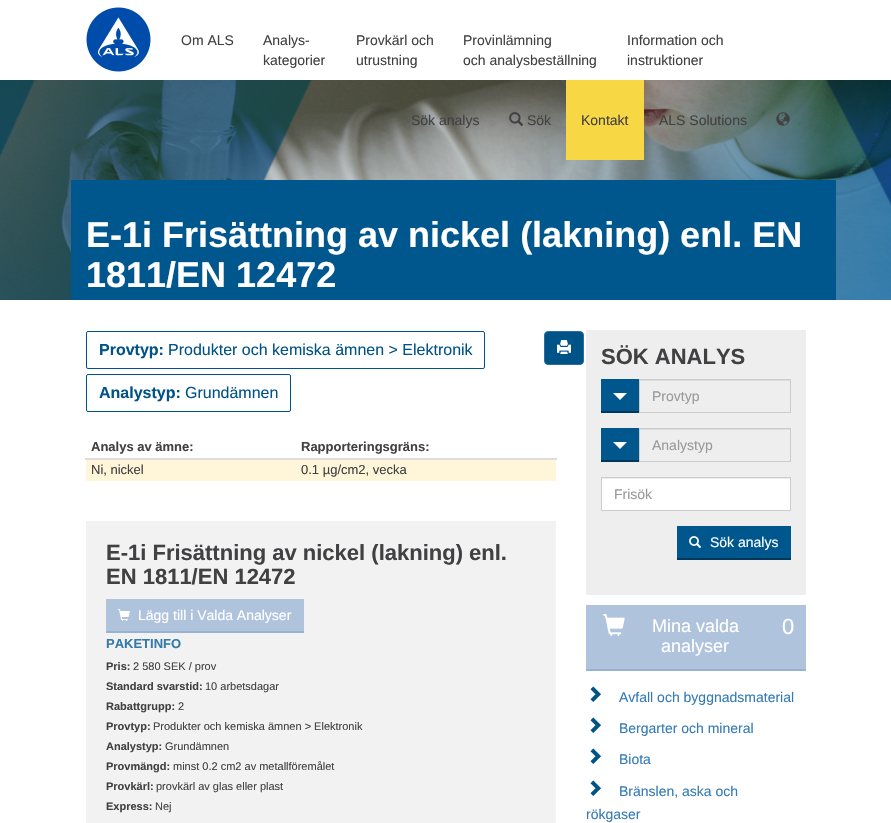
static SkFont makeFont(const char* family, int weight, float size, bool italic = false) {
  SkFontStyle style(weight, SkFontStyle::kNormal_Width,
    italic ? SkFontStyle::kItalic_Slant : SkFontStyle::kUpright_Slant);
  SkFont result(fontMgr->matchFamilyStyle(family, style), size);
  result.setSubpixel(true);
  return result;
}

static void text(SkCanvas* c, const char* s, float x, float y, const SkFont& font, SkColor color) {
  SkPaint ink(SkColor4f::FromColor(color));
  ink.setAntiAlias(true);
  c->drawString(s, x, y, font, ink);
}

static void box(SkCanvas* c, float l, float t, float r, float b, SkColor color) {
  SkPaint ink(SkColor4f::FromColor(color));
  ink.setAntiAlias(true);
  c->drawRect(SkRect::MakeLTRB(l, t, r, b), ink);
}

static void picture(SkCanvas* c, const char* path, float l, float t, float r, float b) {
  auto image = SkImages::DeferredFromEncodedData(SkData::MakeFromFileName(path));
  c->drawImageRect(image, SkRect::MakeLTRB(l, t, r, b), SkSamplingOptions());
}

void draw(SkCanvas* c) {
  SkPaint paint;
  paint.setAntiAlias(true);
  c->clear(0xffffffff);
  picture(c, "img_01.png", 86, 7, 151, 72);
  SkFont face1 = makeFont("Liberation Sans", 400, 14);
  text(c, "Om ALS", 181, 45, face1, 0xff414042);
  text(c, "Analys-", 263, 45, face1, 0xff414042);
  text(c, "kategorier", 263, 65, face1, 0xff414042);
  text(c, "Provkärl och", 356, 45, face1, 0xff414042);
  text(c, "utrustning", 356, 65, face1, 0xff414042);
  text(c, "Provinlämning", 463, 45, face1, 0xff414042);
  text(c, "och analysbeställning", 463, 65, face1, 0xff414042);
  text(c, "Information och", 627, 45, face1, 0xff414042);
  text(c, "instruktioner", 627, 65, face1, 0xff414042);
  picture(c, "img_04.png", 0, 80, 891, 300);
  text(c, "Sök analys", 411, 125, face1, 0xff414042);
  picture(c, "img_02.png", 509, 112, 523, 126);
  text(c, "Sök", 527, 125, face1, 0xff414042);
  box(c, 566, 80, 644, 160, 0xfff8d744);
  text(c, "Kontakt", 581, 125, face1, 0xff414042);
  text(c, "ALS Solutions", 659, 125, face1, 0xff414042);
  picture(c, "img_03.png", 776, 112, 790, 126);
  box(c, 71, 180, 836, 300, 0xff00578e);
  SkFont face2 = makeFont("Liberation Sans", 700, 36);
  text(c, "E-1i Frisättning av nickel (lakning) enl. EN", 86, 247, face2, 0xffffffff);
  text(c, "1811/EN 12472", 86, 287, face2, 0xffffffff);
  paint.setStyle(SkPaint::kStroke_Style);
  paint.setStrokeWidth(1);
  paint.setColor(0xff005387);
  c->drawRoundRect(SkRect::MakeLTRB(86.5f, 331.5f, 484.5f, 368.5f), 1.5f, 1.5f, paint);
  SkFont face3 = makeFont("Liberation Sans", 700, 16);
  text(c, "Provtyp:", 99, 355, face3, 0xff005387);
  SkFont face4 = makeFont("Liberation Sans", 400, 16);
  text(c, "Produkter och kemiska ämnen > Elektronik", 168, 355, face4, 0xff005387);
  c->drawRoundRect(SkRect::MakeLTRB(86.5f, 374.5f, 290.5f, 411.5f), 1.5f, 1.5f, paint);
  text(c, "Analystyp:", 99, 398, face3, 0xff005387);
  text(c, "Grundämnen", 185, 398, face4, 0xff005387);
  paint.setStyle(SkPaint::kFill_Style);
  c->drawRoundRect(SkRect::MakeLTRB(544.5f, 331.5f, 583.5f, 364.5f), 3.5f, 3.5f, paint);
  paint.setStyle(SkPaint::kStroke_Style);
  paint.setColor(0xff2e6da4);
  c->drawRoundRect(SkRect::MakeLTRB(544.5f, 331.5f, 583.5f, 364.5f), 3.5f, 3.5f, paint);
  picture(c, "img_05.png", 557, 340, 571, 354);
  SkFont face5 = makeFont("Liberation Sans", 700, 13);
  text(c, "Analys av ämne:", 91, 451, face5, 0xff414042);
  box(c, 85, 458, 557, 460, 0xffdddddd);
  text(c, "Rapporteringsgräns:", 301, 451, face5, 0xff414042);
  box(c, 86, 460, 556, 481, 0xfffff5d9);
  SkFont face6 = makeFont("Liberation Sans", 400, 13);
  text(c, "Ni, nickel", 91, 474, face6, 0xff414042);
  text(c, "0.1 µg/cm2, vecka", 301, 474, face6, 0xff414042);
  box(c, 86, 521, 556, 823, 0xfff2f2f2);
  SkFont face7 = makeFont("Liberation Sans", 700, 22);
  text(c, "E-1i Frisättning av nickel (lakning) enl.", 106, 560, face7, 0xff414042);
  text(c, "EN 1811/EN 12472", 106, 584, face7, 0xff414042);
  box(c, 106, 599, 304, 631, 0xffafc3dd);
  box(c, 106, 631, 304, 633, 0xff98b3d2);
  picture(c, "img_06.png", 118, 609, 130, 621);
  text(c, "Lägg till i Valda Analyser", 138, 620, face1, 0xffffffff);
  text(c, "PAKETINFO", 106, 648, face5, 0xff347aaa);
  SkFont face8 = makeFont("Liberation Sans", 700, 11);
  text(c, "Pris:", 106, 670, face8, 0xff414042);
  SkFont face9 = makeFont("Liberation Sans", 400, 11);
  text(c, "2 580 SEK / prov", 133, 670, face9, 0xff414042);
  text(c, "Standard svarstid:", 106, 690, face8, 0xff414042);
  text(c, "10 arbetsdagar", 205, 690, face9, 0xff414042);
  text(c, "Rabattgrupp:", 106, 710, face8, 0xff414042);
  text(c, "2", 178, 710, face9, 0xff414042);
  text(c, "Provtyp:", 106, 730, face8, 0xff414042);
  text(c, "Produkter och kemiska ämnen > Elektronik", 153, 730, face9, 0xff414042);
  text(c, "Analystyp:", 106, 750, face8, 0xff414042);
  text(c, "Grundämnen", 165, 750, face9, 0xff414042);
  text(c, "Provmängd:", 106, 770, face8, 0xff414042);
  text(c, "minst 0.2 cm2 av metallföremålet", 173, 770, face9, 0xff414042);
  text(c, "Provkärl:", 106, 790, face8, 0xff414042);
  text(c, "provkärl av glas eller plast", 156, 790, face9, 0xff414042);
  text(c, "Express:", 106, 810, face8, 0xff414042);
  text(c, "Nej", 155, 810, face9, 0xff414042);
  box(c, 586, 330, 806, 595, 0xffeeeeee);
  text(c, "SÖK ANALYS", 601, 364, face7, 0xff414042);
  box(c, 601, 379, 639, 411, 0xff00578e);
  box(c, 601, 411, 639, 413, 0xff00385b);
  paint.setStyle(SkPaint::kFill_Style);
  paint.setColor(0xffffffff);
  c->drawPath(SkPathBuilder().moveTo(613, 393).lineTo(627, 393).lineTo(620, 400).close().detach(), paint);
  box(c, 640, 380, 790, 381, 0xffdcdcdc);
  paint.setStyle(SkPaint::kStroke_Style);
  paint.setColor(0xffcccccc);
  c->drawRect(SkRect::MakeLTRB(639.5f, 379.5f, 790.5f, 412.5f), paint);
  text(c, "Provtyp", 652, 401, face1, 0xff999999);
  box(c, 601, 428, 639, 460, 0xff00578e);
  box(c, 601, 460, 639, 462, 0xff00385b);
  paint.setStyle(SkPaint::kFill_Style);
  paint.setColor(0xffffffff);
  c->drawPath(SkPathBuilder().moveTo(613, 442).lineTo(627, 442).lineTo(620, 449).close().detach(), paint);
  box(c, 640, 429, 790, 430, 0xffdcdcdc);
  paint.setStyle(SkPaint::kStroke_Style);
  paint.setColor(0xffcccccc);
  c->drawRect(SkRect::MakeLTRB(639.5f, 428.5f, 790.5f, 461.5f), paint);
  text(c, "Analystyp", 652, 450, face1, 0xff999999);
  box(c, 602, 479, 790, 510, 0xffffffff);
  c->drawRect(SkRect::MakeLTRB(601.5f, 477.5f, 790.5f, 510.5f), paint);
  text(c, "Frisök", 614, 499, face1, 0xff999999);
  box(c, 677, 526, 791, 558, 0xff00578e);
  box(c, 677, 558, 791, 560, 0xff00385b);
  picture(c, "img_07.png", 689, 536, 701, 548);
  text(c, "Sök analys", 710, 547, face1, 0xffffffff);
  box(c, 586, 605, 806, 669, 0xffafc3dd);
  box(c, 586, 669, 806, 671, 0xff98b3d2);
  picture(c, "img_08.png", 603, 614, 625, 636);
  SkFont face10 = makeFont("Liberation Sans", 400, 18);
  text(c, "Mina valda", 652, 632, face10, 0xffffffff);
  text(c, "analyser", 661, 652, face10, 0xffffffff);
  SkFont face11 = makeFont("Liberation Sans", 400, 22);
  text(c, "0", 782, 634, face11, 0xffffffff);
  picture(c, "img_09.png", 590, 686, 601, 702);
  text(c, "Avfall och byggnadsmaterial", 619, 702, face1, 0xff337ab7);
  picture(c, "img_09.png", 590, 717, 601, 733);
  text(c, "Bergarter och mineral", 619, 733, face1, 0xff337ab7);
  picture(c, "img_09.png", 590, 748, 601, 764);
  text(c, "Biota", 619, 764, face1, 0xff337ab7);
  picture(c, "img_09.png", 590, 780, 601, 796);
  text(c, "Bränslen, aska och", 619, 796, face1, 0xff337ab7);
  text(c, "rökgaser", 586, 819, face1, 0xff337ab7);
}
